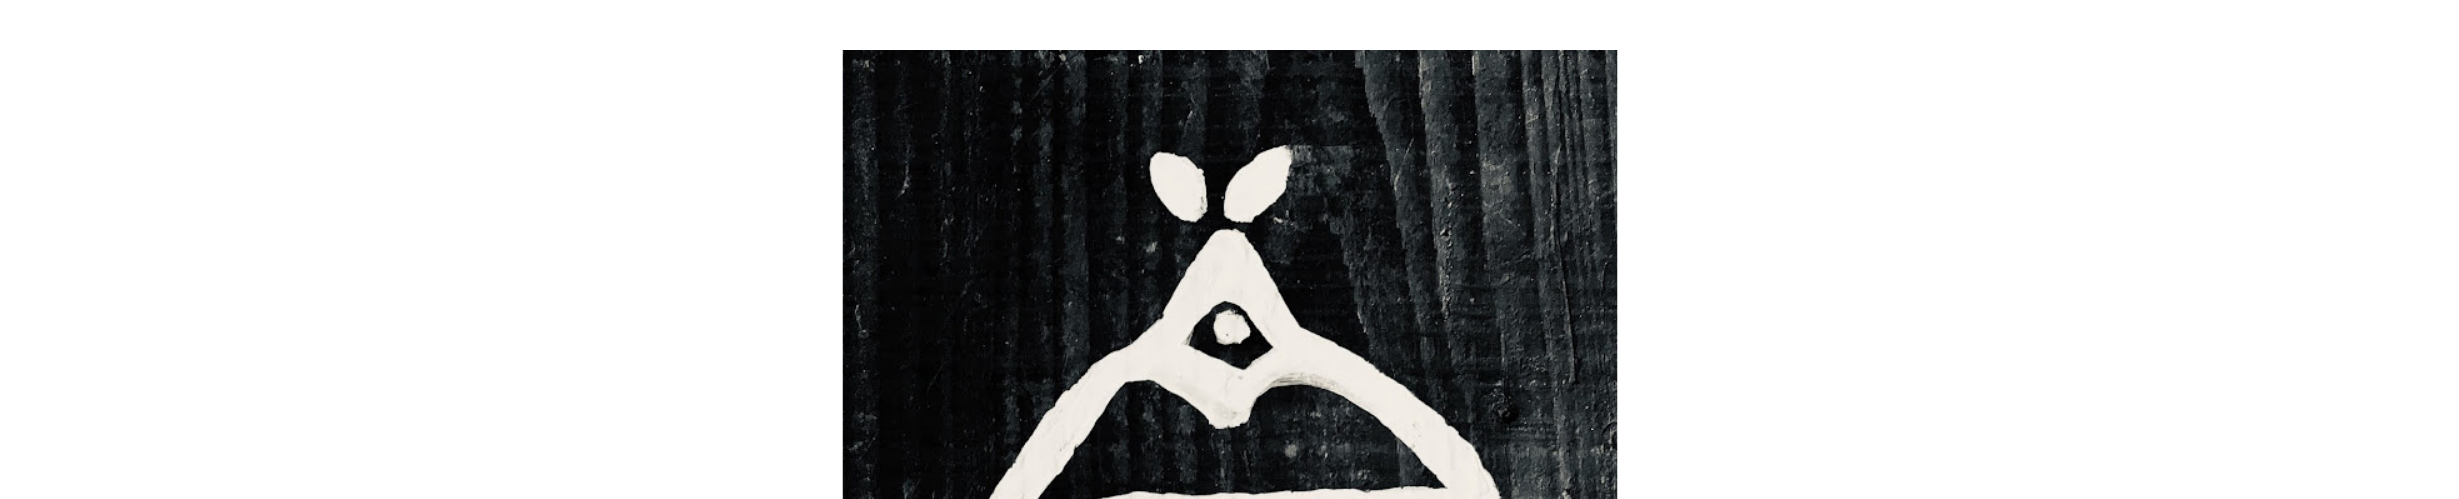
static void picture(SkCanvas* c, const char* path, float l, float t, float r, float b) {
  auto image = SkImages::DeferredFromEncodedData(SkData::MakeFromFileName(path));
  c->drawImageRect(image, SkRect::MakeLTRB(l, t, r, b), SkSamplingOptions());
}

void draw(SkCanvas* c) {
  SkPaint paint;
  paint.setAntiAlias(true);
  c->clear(0xffffffff);
  picture(c, "img_01.png", 842, 50, 1618, 499);
}
